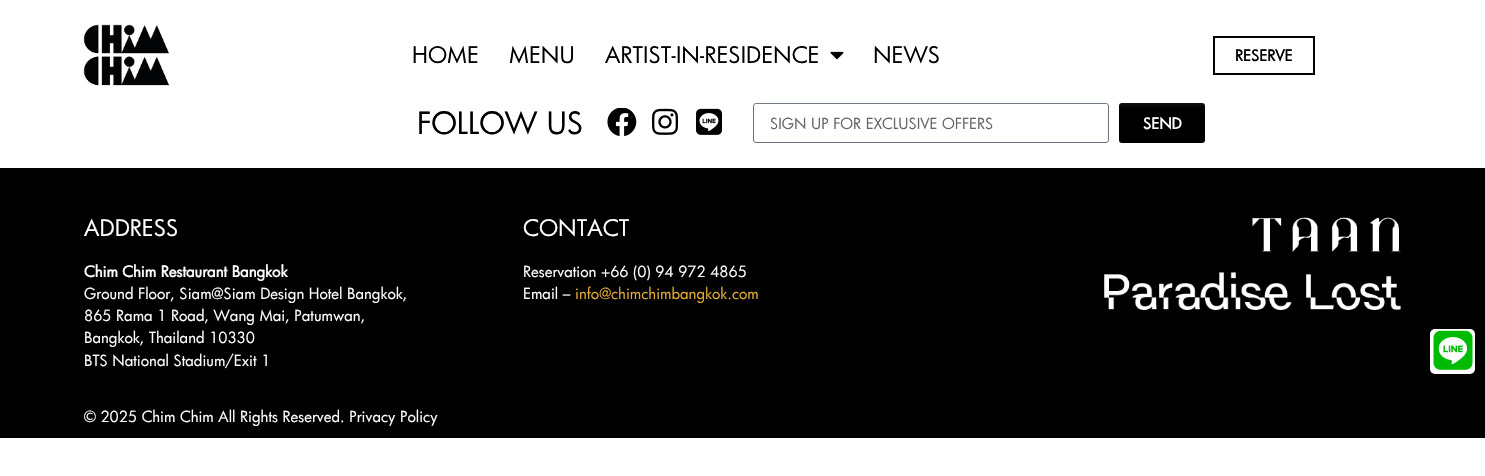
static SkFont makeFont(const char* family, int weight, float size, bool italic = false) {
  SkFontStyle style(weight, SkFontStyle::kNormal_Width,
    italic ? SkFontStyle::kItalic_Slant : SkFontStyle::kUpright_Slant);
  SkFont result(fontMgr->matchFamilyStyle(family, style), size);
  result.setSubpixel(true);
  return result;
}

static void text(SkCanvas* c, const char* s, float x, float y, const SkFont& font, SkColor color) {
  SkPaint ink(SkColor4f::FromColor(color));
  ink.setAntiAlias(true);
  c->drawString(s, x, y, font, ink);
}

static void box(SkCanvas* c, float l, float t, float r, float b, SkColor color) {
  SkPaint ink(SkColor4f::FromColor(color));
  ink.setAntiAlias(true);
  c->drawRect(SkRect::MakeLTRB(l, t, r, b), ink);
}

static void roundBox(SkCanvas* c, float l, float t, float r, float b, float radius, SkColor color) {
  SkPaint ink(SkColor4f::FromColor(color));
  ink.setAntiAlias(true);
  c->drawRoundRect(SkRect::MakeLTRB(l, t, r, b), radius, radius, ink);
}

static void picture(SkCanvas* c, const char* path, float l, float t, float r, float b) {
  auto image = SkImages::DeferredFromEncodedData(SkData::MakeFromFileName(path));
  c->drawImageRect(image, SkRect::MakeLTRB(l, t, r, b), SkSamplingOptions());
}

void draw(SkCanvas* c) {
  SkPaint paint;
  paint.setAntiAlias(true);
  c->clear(0xffffffff);
  paint.setStyle(SkPaint::kStroke_Style);
  paint.setStrokeWidth(1);
  paint.setColor(0xff69727d);
  c->drawRoundRect(SkRect::MakeLTRB(753.5f, 103.5f, 1108.5f, 142.5f), 2.5f, 2.5f, paint);
  roundBox(c, 1119, 103, 1205, 143, 3, 0xff000000);
  paint.setStyle(SkPaint::kFill_Style);
  {
    const SkColor colors[] = {0x96ffffff, 0x00ffffff};
    const float stops[] = {0.4f, 1};
    const SkPoint ends[] = {{743, 0}, {743, 110}};
    paint.setShader(SkGradientShader::MakeLinear(ends, colors, stops, 2, SkTileMode::kClamp));
    paint.setAlpha(255);
  }
  c->drawRect(SkRect::MakeLTRB(753, 103, 1205, 108), paint);
  picture(c, "img_01.png", 83, 24, 170, 86);
  SkFont face1 = makeFont("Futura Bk", 400, 22.25f);
  text(c, "HOME", 412, 63, face1, 0xff000000);
  text(c, "MENU", 509, 63, face1, 0xff000000);
  text(c, "ARTIST-IN-RESIDENCE", 605, 63, face1, 0xff000000);
  picture(c, "img_02.png", 830, 51, 844, 60);
  text(c, "NEWS", 873, 63, face1, 0xff000000);
  paint.setStyle(SkPaint::kStroke_Style);
  paint.setStrokeWidth(2);
  paint.setShader(nullptr);
  paint.setColor(0xff000000);
  c->drawRect(SkRect::MakeLTRB(1214, 37, 1314, 74), paint);
  SkFont face2 = makeFont("Futura Bk", 700, 14.85f);
  text(c, "RESERVE", 1235, 61, face2, 0xff000000);
  SkFont face3 = makeFont("Futura Bk", 400, 29.75f);
  text(c, "FOLLOW US", 417, 134, face3, 0xff000000);
  picture(c, "img_03.png", 607, 108, 637, 136);
  picture(c, "img_04.png", 652, 108, 679, 135);
  picture(c, "img_05.png", 696, 108, 722, 135);
  SkFont face4 = makeFont("Futura Bk", 400, 14.85f);
  text(c, "SIGN UP FOR EXCLUSIVE OFFERS", 770, 129, face4, 0xff666666);
  text(c, "SEND", 1143, 129, face2, 0xffffffff);
  box(c, 0, 168, 1485, 438, 0xff000000);
  text(c, "ADDRESS", 84, 236, face1, 0xffffffff);
  text(c, "Chim Chim Restaurant Bangkok", 84, 277, face2, 0xffffffff);
  text(c, "Ground Floor, Siam@Siam Design Hotel Bangkok,", 84, 299, face4, 0xffffffff);
  text(c, "865 Rama 1 Road, Wang Mai, Patumwan,", 84, 321, face4, 0xffffffff);
  text(c, "Bangkok, Thailand 10330", 84, 343, face4, 0xffffffff);
  text(c, "BTS National Stadium/Exit 1", 84, 366, face4, 0xffffffff);
  text(c, "CONTACT", 523, 236, face1, 0xffffffff);
  text(c, "Reservation +66 (0) 94 972 4865", 523, 277, face4, 0xffffffff);
  text(c, "Email –", 523, 299, face4, 0xffffffff);
  text(c, "info@chimchimbangkok.com", 575, 299, face4, 0xffe2ac33);
  picture(c, "img_06.png", 1252, 217, 1401, 252);
  picture(c, "img_07.png", 1104, 272, 1401, 310);
  text(c, "© 2025 Chim Chim All Rights Reserved. Privacy Policy", 84, 422, face4, 0xffffffff);
  roundBox(c, 1430, 329, 1475, 374, 5, 0xffffffff);
  picture(c, "img_08.png", 1433, 330, 1473, 370);
}
